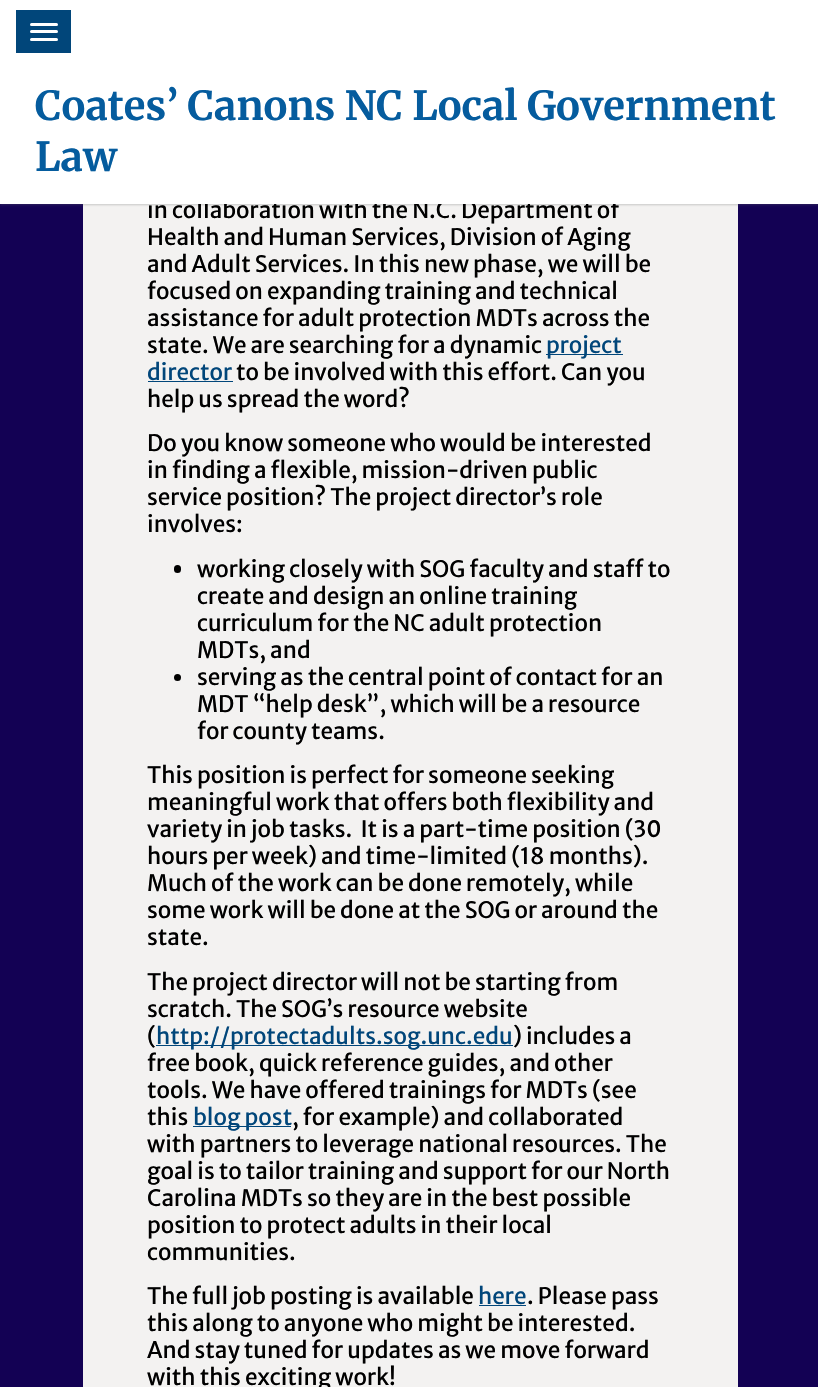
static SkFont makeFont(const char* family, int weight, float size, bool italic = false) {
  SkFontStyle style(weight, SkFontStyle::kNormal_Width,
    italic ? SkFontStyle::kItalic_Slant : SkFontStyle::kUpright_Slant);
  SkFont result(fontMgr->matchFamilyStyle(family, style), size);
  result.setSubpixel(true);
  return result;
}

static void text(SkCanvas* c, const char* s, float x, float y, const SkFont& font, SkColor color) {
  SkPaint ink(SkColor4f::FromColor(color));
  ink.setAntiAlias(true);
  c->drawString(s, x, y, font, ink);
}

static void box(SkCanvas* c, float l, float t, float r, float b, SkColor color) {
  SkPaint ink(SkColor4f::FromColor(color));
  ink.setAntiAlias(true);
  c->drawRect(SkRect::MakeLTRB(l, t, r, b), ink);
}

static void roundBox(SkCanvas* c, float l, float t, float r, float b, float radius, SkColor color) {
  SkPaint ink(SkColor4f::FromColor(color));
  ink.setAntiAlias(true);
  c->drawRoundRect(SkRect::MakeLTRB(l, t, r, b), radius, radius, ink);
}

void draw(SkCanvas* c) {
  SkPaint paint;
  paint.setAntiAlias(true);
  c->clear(0xff130154);
  box(c, 83, 204, 738, 1387, 0xfff3f2f1);
  paint.setColor(0x4d646464);
  paint.setMaskFilter(SkMaskFilter::MakeBlur(kNormal_SkBlurStyle, 1));
  c->drawRect(SkRect::MakeLTRB(0, 1, 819, 205), paint);
  paint.setMaskFilter(nullptr);
  SkFont face1 = makeFont("Merriweather Sans", 400, 22.5f);
  text(c, "in collaboration with the N.C. Department of", 147, 218, face1, 0xff000000);
  box(c, 0, 0, 818, 204, 0xffffffff);
  box(c, 16, 10, 71, 53, 0xff01467a);
  roundBox(c, 30, 23, 58, 26, 1.5f, 0xffffffff);
  roundBox(c, 30, 30, 58, 33, 1.5f, 0xffffffff);
  roundBox(c, 30, 38, 58, 41, 1.5f, 0xffffffff);
  SkFont face2 = makeFont("Merriweather", 700, 40);
  text(c, "Coates’ Canons NC Local Government", 35, 120, face2, 0xff055c9e);
  text(c, "Law", 35, 171, face2, 0xff055c9e);
  text(c, "Health and Human Services, Division of Aging", 147, 245, face1, 0xff000000);
  text(c, "and Adult Services. In this new phase, we will be", 147, 272, face1, 0xff000000);
  text(c, "focused on expanding training and technical", 147, 299, face1, 0xff000000);
  text(c, "assistance for adult protection MDTs across the", 147, 326, face1, 0xff000000);
  text(c, "state. We are searching for a dynamic", 147, 353, face1, 0xff000000);
  box(c, 546, 354, 623, 355, 0xff01467a);
  text(c, "project", 546, 353, face1, 0xff01467a);
  text(c, "director", 147, 380, face1, 0xff01467a);
  box(c, 148, 381, 233, 382, 0xff01467a);
  text(c, "to be involved with this effort. Can you", 236, 380, face1, 0xff000000);
  text(c, "help us spread the word?", 147, 407, face1, 0xff000000);
  text(c, "Do you know someone who would be interested", 147, 451, face1, 0xff000000);
  text(c, "in finding a flexible, mission-driven public", 147, 478, face1, 0xff000000);
  text(c, "service position? The project director’s role", 147, 505, face1, 0xff000000);
  text(c, "involves:", 147, 532, face1, 0xff000000);
  roundBox(c, 174, 565, 181, 573, 3.5f, 0xff000000);
  text(c, "working closely with SOG faculty and staff to", 197, 577, face1, 0xff000000);
  text(c, "create and design an online training", 197, 604, face1, 0xff000000);
  text(c, "curriculum for the NC adult protection", 197, 631, face1, 0xff000000);
  text(c, "MDTs, and", 197, 658, face1, 0xff000000);
  paint.setColor(0xff000000);
  c->drawCircle(177.5f, 677.5f, 3.5f, paint);
  text(c, "serving as the central point of contact for an", 197, 685, face1, 0xff000000);
  text(c, "MDT “help desk”, which will be a resource", 197, 712, face1, 0xff000000);
  text(c, "for county teams.", 197, 739, face1, 0xff000000);
  text(c, "This position is perfect for someone seeking", 147, 783, face1, 0xff000000);
  text(c, "meaningful work that offers both flexibility and", 147, 810, face1, 0xff000000);
  text(c, "variety in job tasks.  It is a part-time position (30", 147, 837, face1, 0xff000000);
  text(c, "hours per week) and time-limited (18 months).", 147, 864, face1, 0xff000000);
  text(c, "Much of the work can be done remotely, while", 147, 891, face1, 0xff000000);
  text(c, "some work will be done at the SOG or around the", 147, 918, face1, 0xff000000);
  text(c, "state.", 147, 945, face1, 0xff000000);
  text(c, "The project director will not be starting from", 147, 990, face1, 0xff000000);
  text(c, "scratch. The SOG’s resource website", 147, 1017, face1, 0xff000000);
  text(c, "(", 147, 1044, face1, 0xff000000);
  box(c, 156, 1045, 513, 1046, 0xff01467a);
  text(c, "http://protectadults.sog.unc.edu", 156, 1044, face1, 0xff01467a);
  text(c, ") includes a", 513, 1044, face1, 0xff000000);
  text(c, "free book, quick reference guides, and other", 147, 1071, face1, 0xff000000);
  text(c, "tools. We have offered trainings for MDTs (see", 147, 1098, face1, 0xff000000);
  text(c, "this", 147, 1125, face1, 0xff000000);
  box(c, 193, 1126, 291, 1127, 0xff01467a);
  text(c, "blog post", 193, 1125, face1, 0xff01467a);
  text(c, ", for example) and collaborated", 292, 1125, face1, 0xff000000);
  text(c, "with partners to leverage national resources. The", 147, 1152, face1, 0xff000000);
  text(c, "goal is to tailor training and support for our North", 147, 1179, face1, 0xff000000);
  text(c, "Carolina MDTs so they are in the best possible", 147, 1206, face1, 0xff000000);
  text(c, "position to protect adults in their local", 147, 1233, face1, 0xff000000);
  text(c, "communities.", 147, 1260, face1, 0xff000000);
  text(c, "The full job posting is available", 147, 1304, face1, 0xff000000);
  text(c, "here", 478, 1304, face1, 0xff01467a);
  box(c, 479, 1305, 526, 1306, 0xff01467a);
  text(c, ". Please pass", 527, 1304, face1, 0xff000000);
  text(c, "this along to anyone who might be interested.", 147, 1331, face1, 0xff000000);
  text(c, "And stay tuned for updates as we move forward", 147, 1358, face1, 0xff000000);
  text(c, "with this exciting work!", 147, 1385, face1, 0xff000000);
}
